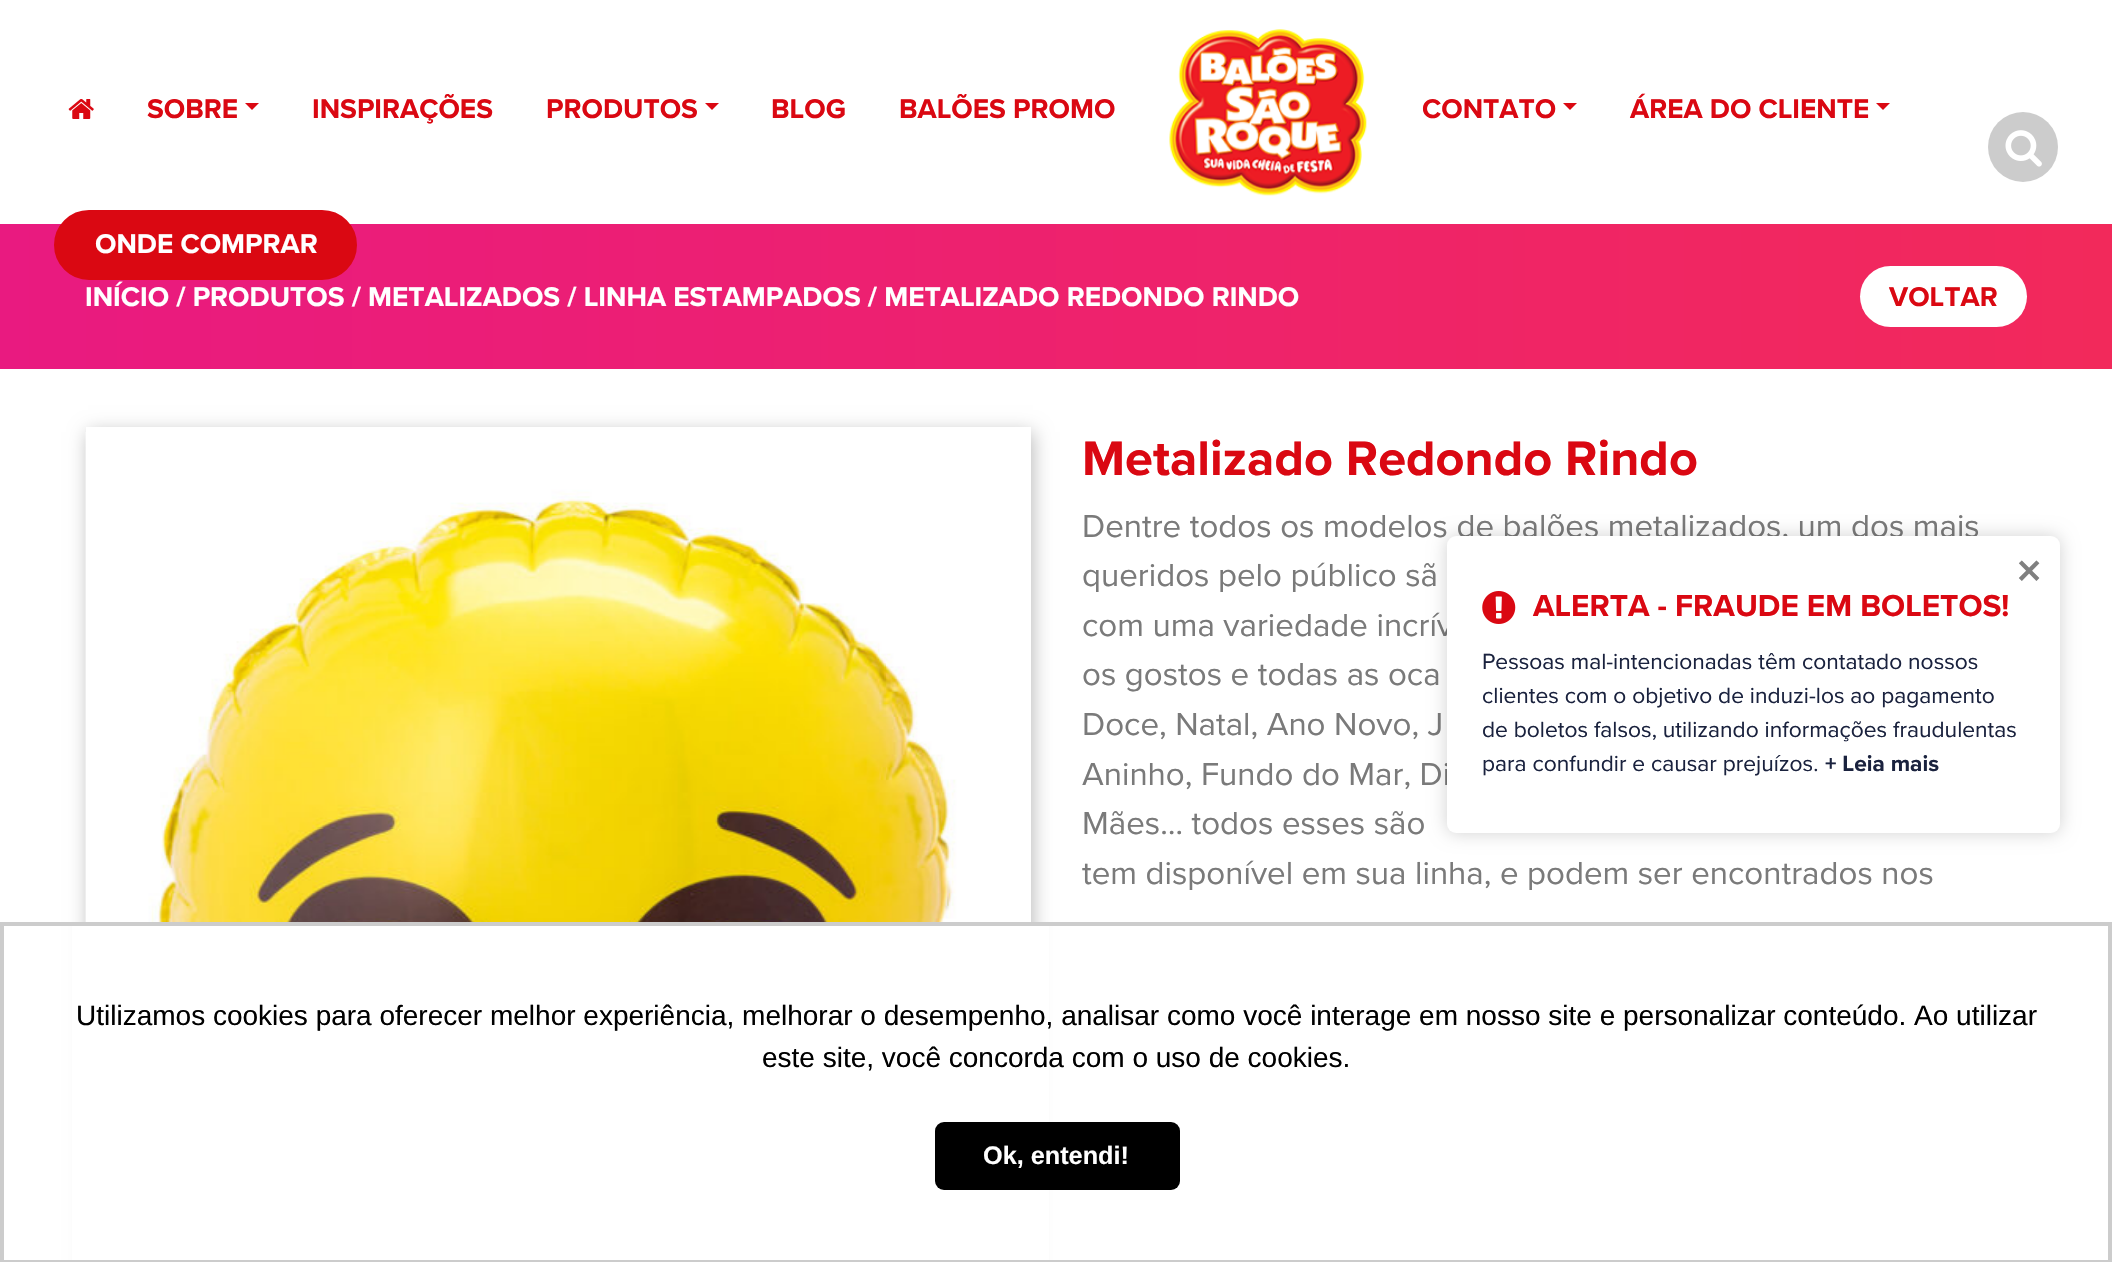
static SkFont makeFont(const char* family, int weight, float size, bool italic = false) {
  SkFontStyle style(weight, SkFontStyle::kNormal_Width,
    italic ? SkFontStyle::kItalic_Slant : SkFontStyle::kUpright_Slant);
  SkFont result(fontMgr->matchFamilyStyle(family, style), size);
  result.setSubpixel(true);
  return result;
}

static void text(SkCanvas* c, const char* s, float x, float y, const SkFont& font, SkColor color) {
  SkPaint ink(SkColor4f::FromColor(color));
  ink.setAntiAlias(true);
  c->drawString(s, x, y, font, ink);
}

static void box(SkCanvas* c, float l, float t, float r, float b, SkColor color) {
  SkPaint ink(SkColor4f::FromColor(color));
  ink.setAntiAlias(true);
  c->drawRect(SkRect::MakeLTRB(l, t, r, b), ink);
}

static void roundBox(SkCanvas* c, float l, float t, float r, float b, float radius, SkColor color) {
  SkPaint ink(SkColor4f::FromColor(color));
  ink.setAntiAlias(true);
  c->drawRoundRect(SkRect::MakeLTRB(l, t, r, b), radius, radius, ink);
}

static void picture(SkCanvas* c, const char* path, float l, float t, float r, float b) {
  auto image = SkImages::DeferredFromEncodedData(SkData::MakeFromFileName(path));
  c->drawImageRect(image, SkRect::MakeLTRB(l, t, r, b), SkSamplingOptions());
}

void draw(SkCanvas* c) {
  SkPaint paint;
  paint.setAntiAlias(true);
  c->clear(0xffffffff);
  picture(c, "img_01.png", 68, 99, 94, 119);
  SkFont face1 = makeFont("Proxima Nova", 700, 28);
  text(c, "SOBRE", 147, 118, face1, 0xffda0812);
  paint.setColor(0xffda0812);
  c->drawPath(SkPathBuilder().moveTo(245, 103).lineTo(259, 103).lineTo(252, 110).close().detach(), paint);
  text(c, "INSPIRAÇÕES", 312, 118, face1, 0xffda0812);
  text(c, "PRODUTOS", 546, 118, face1, 0xffda0812);
  c->drawPath(SkPathBuilder().moveTo(705, 103).lineTo(719, 103).lineTo(712, 110).close().detach(), paint);
  text(c, "BLOG", 771, 118, face1, 0xffda0812);
  text(c, "BALÕES PROMO", 899, 118, face1, 0xffda0812);
  picture(c, "img_02.png", 1169, 29, 1367, 196);
  text(c, "CONTATO", 1422, 118, face1, 0xffda0812);
  c->drawPath(SkPathBuilder().moveTo(1563, 103).lineTo(1577, 103).lineTo(1570, 110).close().detach(), paint);
  text(c, "ÁREA DO CLIENTE", 1630, 118, face1, 0xffda0812);
  c->drawPath(SkPathBuilder().moveTo(1876, 103).lineTo(1890, 103).lineTo(1883, 110).close().detach(), paint);
  {
    const SkColor colors[] = {0xffe91a80, 0xfff2295b};
    const float stops[] = {0, 1};
    const SkPoint ends[] = {{0, 297}, {2112, 297}};
    paint.setShader(SkGradientShader::MakeLinear(ends, colors, stops, 2, SkTileMode::kClamp));
    paint.setAlpha(255);
  }
  c->drawRect(SkRect::MakeLTRB(0, 224, 2112, 369), paint);
  paint.setShader(nullptr);
  paint.setColor(0xffda0812);
  c->drawRoundRect(SkRect::MakeLTRB(56.5f, 212.5f, 354.5f, 277.5f), 32.5f, 32.5f, paint);
  paint.setStyle(SkPaint::kStroke_Style);
  paint.setStrokeWidth(5);
  c->drawRoundRect(SkRect::MakeLTRB(56.5f, 212.5f, 354.5f, 277.5f), 32.5f, 32.5f, paint);
  text(c, "ONDE COMPRAR", 95, 253, face1, 0xffffffff);
  paint.setStyle(SkPaint::kFill_Style);
  paint.setColor(0xffcccccc);
  c->drawCircle(2023, 147, 35, paint);
  picture(c, "img_03.png", 2005, 130, 2042, 167);
  text(c, "INÍCIO / PRODUTOS / METALIZADOS / LINHA ESTAMPADOS / METALIZADO REDONDO RINDO", 85, 306, face1, 0xffffffff);
  roundBox(c, 1860, 266, 2027, 327, 30.5f, 0xffffffff);
  text(c, "VOLTAR", 1889, 306, face1, 0xffda0812);
  c->save();
  c->clipPath(SkPathBuilder(SkPathFillType::kEvenOdd).moveTo(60, 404).lineTo(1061, 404).lineTo(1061, 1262).lineTo(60, 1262).close().moveTo(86, 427).lineTo(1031, 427).lineTo(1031, 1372).lineTo(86, 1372).close().detach(), true);
  paint.setColor(0x45000000);
  paint.setMaskFilter(SkMaskFilter::MakeBlur(kNormal_SkBlurStyle, 9));
  c->drawRect(SkRect::MakeLTRB(88, 432, 1033, 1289), paint);
  paint.setMaskFilter(nullptr);
  c->restore();
  picture(c, "img_04.png", 85, 432, 1031, 922);
  SkFont face2 = makeFont("Proxima Nova", 700, 50.4f);
  text(c, "Metalizado Redondo Rindo", 1082, 475, face2, 0xffda0812);
  SkFont face3 = makeFont("Proxima Nova", 400, 33.05f);
  text(c, "Dentre todos os modelos de balões metalizados, um dos mais", 1082, 537, face3, 0xff7a7a7a);
  text(c, "queridos pelo público sã", 1082, 586, face3, 0xff7a7a7a);
  text(c, "com uma variedade incrív", 1082, 636, face3, 0xff7a7a7a);
  text(c, "os gostos e todas as oca", 1082, 685, face3, 0xff7a7a7a);
  text(c, "Doce, Natal, Ano Novo, J", 1082, 735, face3, 0xff7a7a7a);
  text(c, "Aninho, Fundo do Mar, Di", 1082, 785, face3, 0xff7a7a7a);
  text(c, "Mães… todos esses são", 1082, 834, face3, 0xff7a7a7a);
  text(c, "tem disponível em sua linha, e podem ser encontrados nos", 1082, 884, face3, 0xff7a7a7a);
  paint.setColor(0x2e000000);
  paint.setMaskFilter(SkMaskFilter::MakeBlur(kNormal_SkBlurStyle, 9));
  c->drawRoundRect(SkRect::MakeLTRB(1447, 536, 2060, 833), 9, 9, paint);
  paint.setMaskFilter(nullptr);
  roundBox(c, 1447, 536, 2060, 833, 9, 0xffffffff);
  SkFont face4 = makeFont("Proxima Nova", 700, 52);
  text(c, "×", 2016, 588, face4, 0xff808080);
  picture(c, "img_05.png", 1482, 591, 1516, 624);
  SkFont face5 = makeFont("Proxima Nova", 700, 31.5f);
  text(c, "ALERTA - FRAUDE EM BOLETOS!", 1533, 616, face5, 0xffda0812);
  SkFont face6 = makeFont("Proxima Nova", 400, 22.75f);
  text(c, "Pessoas mal-intencionadas têm contatado nossos", 1482, 669, face6, 0xff1a223e);
  text(c, "clientes com o objetivo de induzi-los ao pagamento", 1482, 703, face6, 0xff1a223e);
  text(c, "de boletos falsos, utilizando informações fraudulentas", 1482, 737, face6, 0xff1a223e);
  text(c, "para confundir e causar prejuízos.", 1482, 771, face6, 0xff1a223e);
  SkFont face7 = makeFont("Proxima Nova", 700, 22.75f);
  text(c, "+ Leia mais", 1825, 771, face7, 0xff1a223e);
  box(c, 72, 926, 1049, 1260, 0xffffffff);
  paint.setStyle(SkPaint::kStroke_Style);
  paint.setStrokeWidth(4);
  paint.setColor(0xffcccccc);
  c->drawRect(SkRect::MakeLTRB(2, 924, 2110, 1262), paint);
  SkFont face8 = makeFont("Liberation Sans", 400, 28);
  text(c, "Utilizamos cookies para oferecer melhor experiência, melhorar o desempenho, analisar como você interage em nosso site e personalizar conteúdo. Ao utilizar", 76, 1025, face8, 0xff000000);
  text(c, "este site, você concorda com o uso de cookies.", 762, 1067, face8, 0xff000000);
  roundBox(c, 935, 1122, 1180, 1190, 9, 0xff000000);
  SkFont face9 = makeFont("Liberation Sans", 700, 25.25f);
  text(c, "Ok, entendi!", 983, 1164, face9, 0xffffffff);
}
